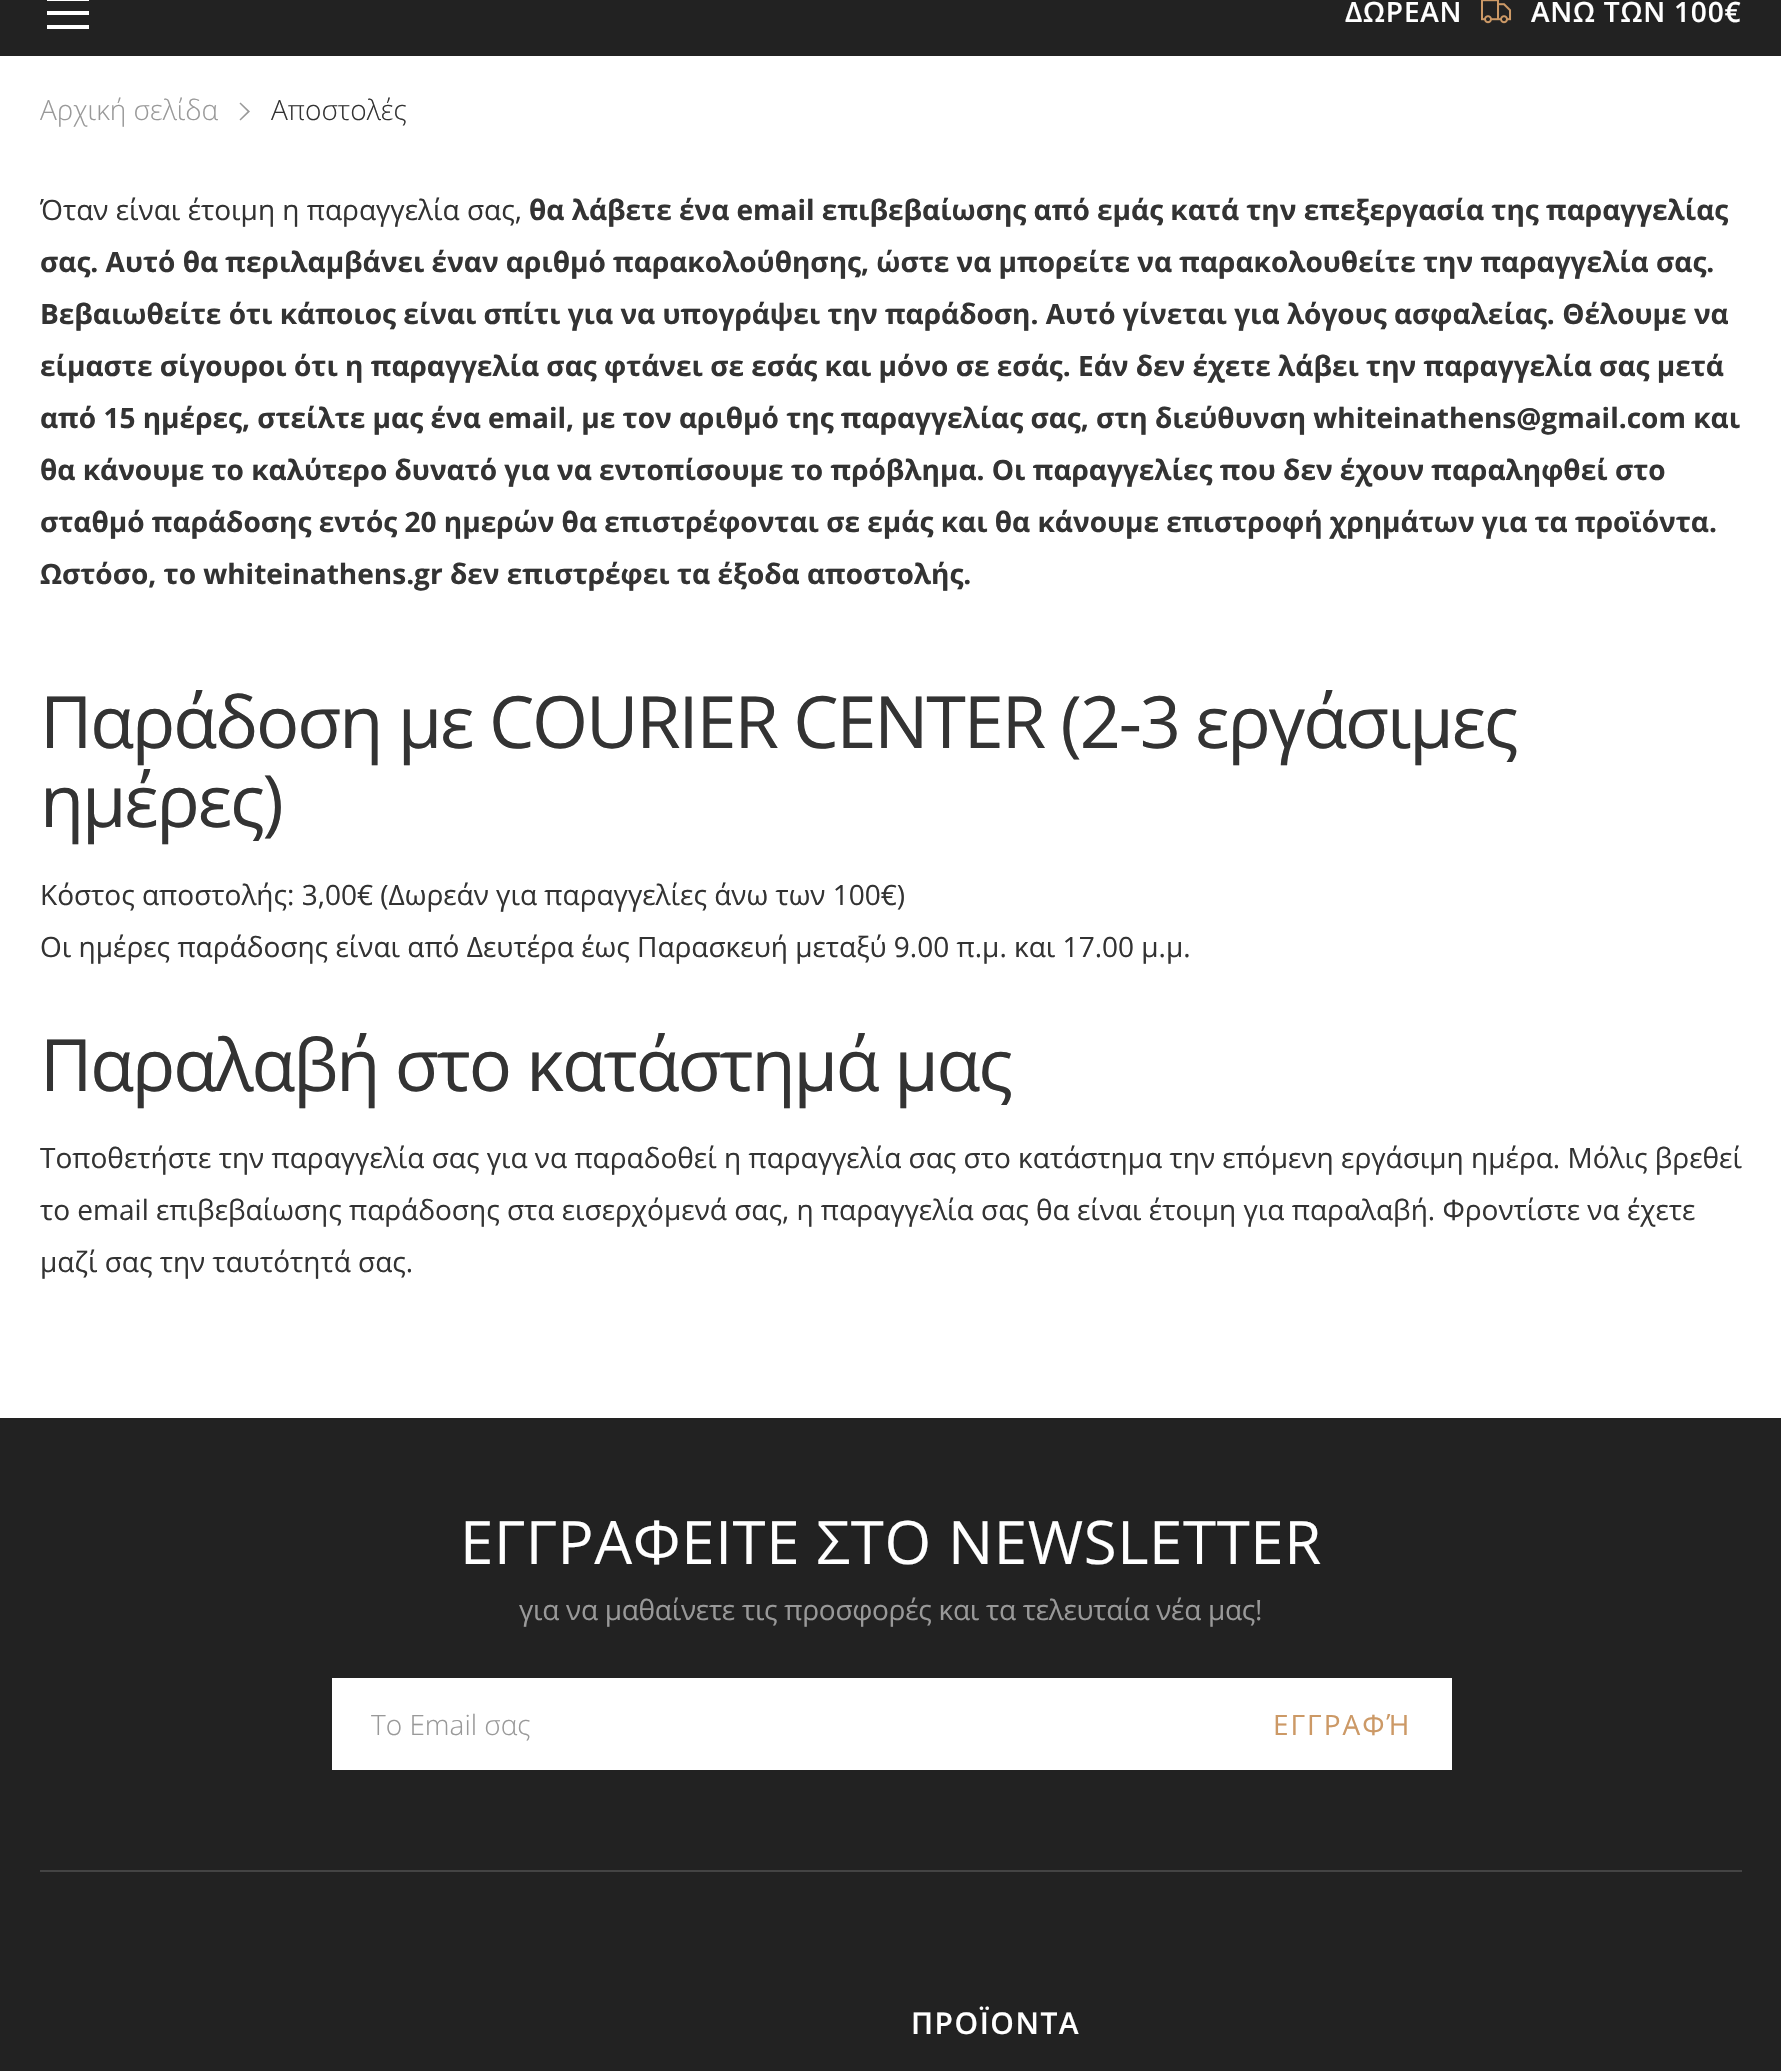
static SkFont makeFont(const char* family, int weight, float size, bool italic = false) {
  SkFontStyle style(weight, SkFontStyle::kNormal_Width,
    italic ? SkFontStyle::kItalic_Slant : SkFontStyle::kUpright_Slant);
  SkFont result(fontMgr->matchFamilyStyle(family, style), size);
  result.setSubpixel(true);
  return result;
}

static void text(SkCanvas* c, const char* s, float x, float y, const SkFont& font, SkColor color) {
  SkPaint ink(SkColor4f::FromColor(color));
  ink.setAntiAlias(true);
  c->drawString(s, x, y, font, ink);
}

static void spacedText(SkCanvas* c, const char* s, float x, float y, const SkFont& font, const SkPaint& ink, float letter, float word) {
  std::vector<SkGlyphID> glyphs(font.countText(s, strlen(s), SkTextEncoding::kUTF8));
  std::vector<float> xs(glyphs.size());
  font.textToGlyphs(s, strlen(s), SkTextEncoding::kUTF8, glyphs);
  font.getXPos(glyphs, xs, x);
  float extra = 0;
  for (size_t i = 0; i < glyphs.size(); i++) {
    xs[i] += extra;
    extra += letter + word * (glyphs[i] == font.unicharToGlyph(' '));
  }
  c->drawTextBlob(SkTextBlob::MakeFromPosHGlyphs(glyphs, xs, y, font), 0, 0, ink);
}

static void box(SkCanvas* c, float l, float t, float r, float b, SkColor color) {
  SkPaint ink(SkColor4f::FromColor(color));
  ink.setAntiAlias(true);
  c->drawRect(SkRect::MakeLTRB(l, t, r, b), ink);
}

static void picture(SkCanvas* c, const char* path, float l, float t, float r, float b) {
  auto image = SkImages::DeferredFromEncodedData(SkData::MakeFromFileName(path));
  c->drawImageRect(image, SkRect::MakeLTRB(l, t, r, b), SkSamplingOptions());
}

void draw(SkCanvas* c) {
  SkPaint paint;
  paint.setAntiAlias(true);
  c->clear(0xffffffff);
  box(c, 0, 0, 1781, 56, 0xff222222);
  paint.setColor(0xffffffff);
  c->drawPath(SkPathBuilder().moveTo(47, -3).lineTo(89, -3).lineTo(89, 1).lineTo(47, 1).close().moveTo(47, 11).lineTo(89, 11).lineTo(89, 15).lineTo(47, 15).close().moveTo(47, 25).lineTo(89, 25).lineTo(89, 29).lineTo(47, 29).close().detach(), paint);
  SkFont face1 = makeFont("Open Sans", 600, 28);
  spacedText(c, "ΔΩΡΕΑΝ", 1345, 22, face1, paint, 0.8f, 0);
  picture(c, "img_01.png", 1481, 0, 1512, 24);
  spacedText(c, "ΑΝΩ ΤΩΝ 100€", 1531, 22, face1, paint, 0.8f, 0);
  SkFont face2 = makeFont("Open Sans", 300, 28);
  text(c, "Αρχική σελίδα", 40, 120, face2, 0xff999999);
  paint.setColor(0xff999999);
  c->drawPath(SkPathBuilder().moveTo(240.5f, 102.5f).lineTo(250, 111.5f).lineTo(240.5f, 120.5f).lineTo(239.5f, 119.5f).lineTo(247.5f, 111.5f).lineTo(239.5f, 103.5f).close().detach(), paint);
  text(c, "Αποστολές", 271, 120, face2, 0xff333333);
  SkFont face3 = makeFont("Open Sans", 400, 28);
  text(c, "Όταν είναι έτοιμη η παραγγελία σας,", 40, 220, face3, 0xff333333);
  SkFont face4 = makeFont("Open Sans", 700, 28);
  text(c, "θα λάβετε ένα email επιβεβαίωσης από εμάς κατά την επεξεργασία της παραγγελίας", 529, 220, face4, 0xff333333);
  text(c, "σας. Αυτό θα περιλαμβάνει έναν αριθμό παρακολούθησης, ώστε να μπορείτε να παρακολουθείτε την παραγγελία σας.", 40, 272, face4, 0xff333333);
  text(c, "Βεβαιωθείτε ότι κάποιος είναι σπίτι για να υπογράψει την παράδοση. Αυτό γίνεται για λόγους ασφαλείας. Θέλουμε να", 40, 324, face4, 0xff333333);
  text(c, "είμαστε σίγουροι ότι η παραγγελία σας φτάνει σε εσάς και μόνο σε εσάς. Εάν δεν έχετε λάβει την παραγγελία σας μετά", 40, 376, face4, 0xff333333);
  text(c, "από 15 ημέρες, στείλτε μας ένα email, με τον αριθμό της παραγγελίας σας, στη διεύθυνση whiteinathens@gmail.com και", 40, 428, face4, 0xff333333);
  text(c, "θα κάνουμε το καλύτερο δυνατό για να εντοπίσουμε το πρόβλημα. Οι παραγγελίες που δεν έχουν παραληφθεί στο", 40, 480, face4, 0xff333333);
  text(c, "σταθμό παράδοσης εντός 20 ημερών θα επιστρέφονται σε εμάς και θα κάνουμε επιστροφή χρημάτων για τα προϊόντα.", 40, 532, face4, 0xff333333);
  text(c, "Ωστόσο, το whiteinathens.gr δεν επιστρέφει τα έξοδα αποστολής.", 40, 584, face4, 0xff333333);
  SkFont face5 = makeFont("Open Sans", 400, 72);
  paint.setColor(0xff333333);
  spacedText(c, "Παράδοση με COURIER CENTER (2-3 εργάσιμες", 40, 748, face5, paint, -2.15f, 0);
  spacedText(c, "ημέρες)", 40, 827, face5, paint, -2.15f, 0);
  text(c, "Κόστος αποστολής: 3,00€ (Δωρεάν για παραγγελίες άνω των 100€)", 40, 905, face3, 0xff333333);
  text(c, "Οι ημέρες παράδοσης είναι από Δευτέρα έως Παρασκευή μεταξύ 9.00 π.μ. και 17.00 μ.μ.", 40, 957, face3, 0xff333333);
  spacedText(c, "Παραλαβή στο κατάστημά μας", 40, 1091, face5, paint, -2.15f, 0);
  text(c, "Τοποθετήστε την παραγγελία σας για να παραδοθεί η παραγγελία σας στο κατάστημα την επόμενη εργάσιμη ημέρα. Μόλις βρεθεί", 40, 1168, face3, 0xff333333);
  text(c, "το email επιβεβαίωσης παράδοσης στα εισερχόμενά σας, η παραγγελία σας θα είναι έτοιμη για παραλαβή. Φροντίστε να έχετε", 40, 1220, face3, 0xff333333);
  text(c, "μαζί σας την ταυτότητά σας.", 40, 1272, face3, 0xff333333);
  box(c, 0, 1418, 1781, 2071, 0xff222222);
  SkFont face6 = makeFont("Open Sans", 400, 60);
  paint.setColor(0xffffffff);
  spacedText(c, "ΕΓΓΡΑΦΕΙΤΕ ΣΤΟ NEWSLETTER", 460, 1564, face6, paint, 0.6f, 0);
  paint.setColor(0xff999999);
  spacedText(c, "για να μαθαίνετε τις προσφορές και τα τελευταία νέα μας!", 519, 1620, face3, paint, -0.28f, 0);
  box(c, 332, 1678, 1452, 1770, 0xffffffff);
  text(c, "Το Email σας", 371, 1735, face2, 0xff999999);
  paint.setColor(0xffcc9966);
  spacedText(c, "ΕΓΓΡΑΦΉ", 1273, 1735, face3, paint, 2, 0);
  box(c, 40, 1870, 1742, 1872, 0xff444444);
  SkFont face7 = makeFont("Open Sans", 600, 30);
  paint.setColor(0xffffffff);
  spacedText(c, "ΠΡΟΪΟΝΤΑ", 911, 2034, face7, paint, 1.5f, 0);
}
